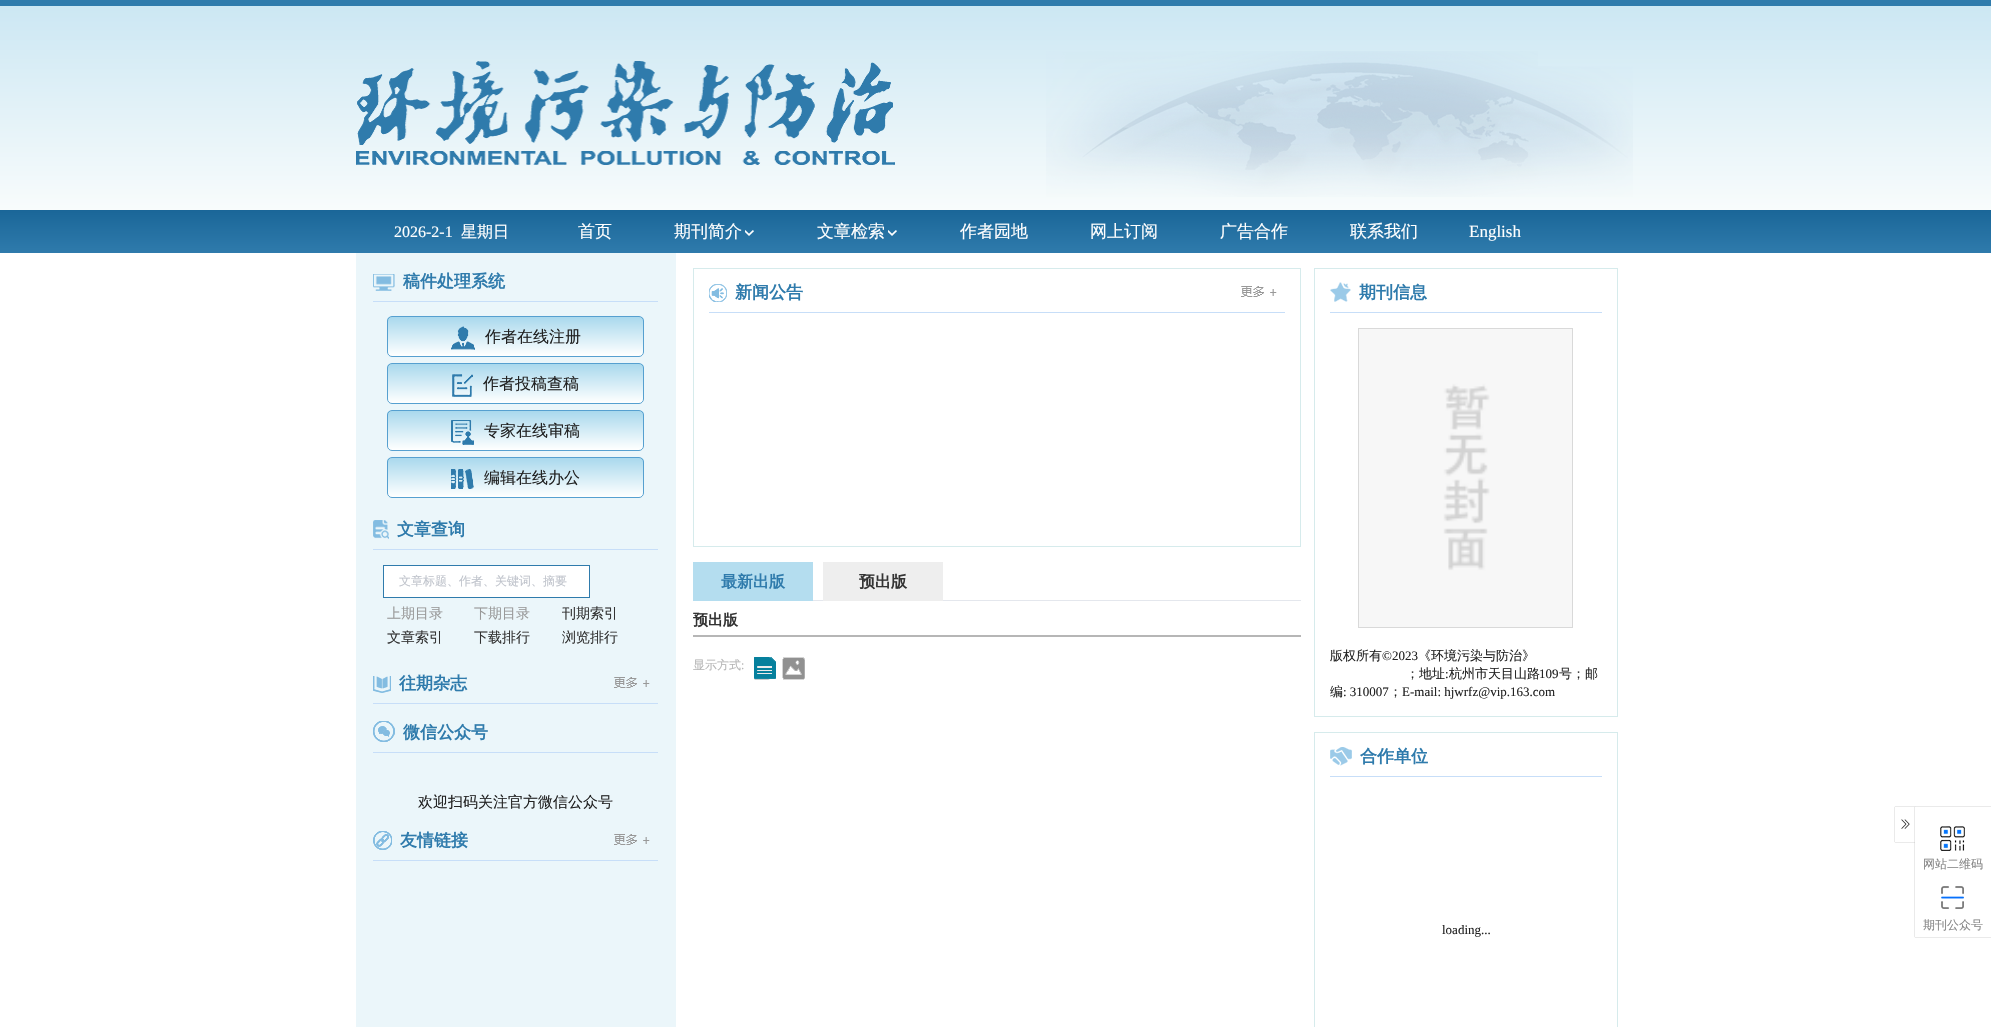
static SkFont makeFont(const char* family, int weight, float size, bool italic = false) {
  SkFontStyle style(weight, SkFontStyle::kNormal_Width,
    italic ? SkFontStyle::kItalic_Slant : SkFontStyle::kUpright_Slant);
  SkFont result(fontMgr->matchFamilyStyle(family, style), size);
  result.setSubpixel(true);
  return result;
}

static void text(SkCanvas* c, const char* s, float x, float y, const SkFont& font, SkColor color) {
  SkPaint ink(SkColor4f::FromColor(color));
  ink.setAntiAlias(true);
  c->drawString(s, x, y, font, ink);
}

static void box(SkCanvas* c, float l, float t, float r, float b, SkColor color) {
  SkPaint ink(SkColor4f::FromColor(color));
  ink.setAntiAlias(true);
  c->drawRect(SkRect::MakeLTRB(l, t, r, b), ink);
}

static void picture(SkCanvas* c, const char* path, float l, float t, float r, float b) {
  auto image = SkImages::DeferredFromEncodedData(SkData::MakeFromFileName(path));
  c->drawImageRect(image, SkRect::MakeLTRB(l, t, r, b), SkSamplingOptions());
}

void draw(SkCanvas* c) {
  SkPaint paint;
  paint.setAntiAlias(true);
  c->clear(0xffffffff);
  {
    const SkColor colors[] = {0xffcce7f3, 0xfff8fcfc};
    const float stops[] = {0, 1};
    const SkPoint ends[] = {{996, 6}, {996, 210}};
    paint.setShader(SkGradientShader::MakeLinear(ends, colors, stops, 2, SkTileMode::kClamp));
    paint.setAlpha(255);
  }
  c->drawRect(SkRect::MakeLTRB(0, 6, 1991, 210), paint);
  box(c, 0, 0, 1991, 6, 0xff2f7bac);
  picture(c, "img_01.png", 356, 61, 895, 165);
  picture(c, "img_02.png", 1046, 51, 1633, 197);
  {
    const SkColor colors[] = {0xff1a6698, 0xff2f7bac};
    const float stops[] = {0, 1};
    const SkPoint ends[] = {{996, 210}, {996, 253}};
    paint.setShader(SkGradientShader::MakeLinear(ends, colors, stops, 2, SkTileMode::kClamp));
    paint.setAlpha(255);
  }
  c->drawRect(SkRect::MakeLTRB(0, 210, 1991, 253), paint);
  SkFont face1 = makeFont("Liberation Serif", 400, 16);
  text(c, "2026-2-1", 394, 237, face1, 0xffffffff);
  SkFont face2 = makeFont("WenQuanYi Zen Hei", 500, 16);
  text(c, "星期日", 461, 237, face2, 0xffffffff);
  SkFont face3 = makeFont("WenQuanYi Zen Hei", 500, 17);
  text(c, "首页", 578, 237, face3, 0xffffffff);
  text(c, "期刊简介", 674, 237, face3, 0xffffffff);
  picture(c, "img_03.png", 745, 230, 754, 236);
  text(c, "文章检索", 817, 237, face3, 0xffffffff);
  picture(c, "img_03.png", 888, 230, 897, 236);
  text(c, "作者园地", 960, 237, face3, 0xffffffff);
  text(c, "网上订阅", 1090, 237, face3, 0xffffffff);
  text(c, "广告合作", 1220, 237, face3, 0xffffffff);
  text(c, "联系我们", 1350, 237, face3, 0xffffffff);
  SkFont face4 = makeFont("Liberation Serif", 400, 17);
  text(c, "English", 1469, 237, face4, 0xffffffff);
  box(c, 356, 253, 676, 1027, 0xffebf6fa);
  box(c, 373, 301, 658, 302, 0xffc7def8);
  picture(c, "img_04.png", 373, 274, 395, 291);
  SkFont face5 = makeFont("WenQuanYi Zen Hei", 700, 17);
  text(c, "稿件处理系统", 403, 287, face5, 0xff2f7bac);
  c->save();
  c->clipPath(SkPathBuilder().moveTo(392, 316).lineTo(639, 316).cubicTo(642, 316, 644, 318, 644, 321).lineTo(644, 352).cubicTo(644, 355, 642, 357, 639, 357).lineTo(392, 357).cubicTo(389, 357, 387, 355, 387, 352).lineTo(387, 321).cubicTo(387, 318, 389, 316, 392, 316).close().detach(), true);
  {
    const SkColor colors[] = {0xffa9d9ed, 0xffffffff};
    const float stops[] = {0, 1};
    const SkPoint ends[] = {{516, 317}, {516, 356}};
    paint.setShader(SkGradientShader::MakeLinear(ends, colors, stops, 2, SkTileMode::kClamp));
    paint.setAlpha(255);
  }
  c->drawRect(SkRect::MakeLTRB(387, 317, 644, 356), paint);
  c->restore();
  paint.setStyle(SkPaint::kStroke_Style);
  paint.setStrokeWidth(1);
  paint.setShader(nullptr);
  paint.setColor(0xff56a0d0);
  c->drawRoundRect(SkRect::MakeLTRB(387.5f, 316.5f, 643.5f, 356.5f), 4.5f, 4.5f, paint);
  picture(c, "img_05.png", 451, 326, 475, 350);
  text(c, "作者在线注册", 485, 342, face2, 0xff222222);
  c->save();
  c->clipPath(SkPathBuilder().moveTo(392, 363).lineTo(639, 363).cubicTo(642, 363, 644, 365, 644, 368).lineTo(644, 399).cubicTo(644, 402, 642, 404, 639, 404).lineTo(392, 404).cubicTo(389, 404, 387, 402, 387, 399).lineTo(387, 368).cubicTo(387, 365, 389, 363, 392, 363).close().detach(), true);
  paint.setStyle(SkPaint::kFill_Style);
  {
    const SkColor colors[] = {0xffa9d9ed, 0xffffffff};
    const float stops[] = {0, 1};
    const SkPoint ends[] = {{516, 364}, {516, 403}};
    paint.setShader(SkGradientShader::MakeLinear(ends, colors, stops, 2, SkTileMode::kClamp));
    paint.setAlpha(255);
  }
  c->drawRect(SkRect::MakeLTRB(387, 364, 644, 403), paint);
  c->restore();
  paint.setStyle(SkPaint::kStroke_Style);
  paint.setShader(nullptr);
  paint.setColor(0xff56a0d0);
  c->drawRoundRect(SkRect::MakeLTRB(387.5f, 363.5f, 643.5f, 403.5f), 4.5f, 4.5f, paint);
  picture(c, "img_06.png", 452, 374, 473, 397);
  text(c, "作者投稿查稿", 483, 389, face2, 0xff222222);
  c->save();
  c->clipPath(SkPathBuilder().moveTo(392, 410).lineTo(639, 410).cubicTo(642, 410, 644, 412, 644, 415).lineTo(644, 446).cubicTo(644, 449, 642, 451, 639, 451).lineTo(392, 451).cubicTo(389, 451, 387, 449, 387, 446).lineTo(387, 415).cubicTo(387, 412, 389, 410, 392, 410).close().detach(), true);
  paint.setStyle(SkPaint::kFill_Style);
  {
    const SkColor colors[] = {0xffa9d9ed, 0xffffffff};
    const float stops[] = {0, 1};
    const SkPoint ends[] = {{516, 411}, {516, 450}};
    paint.setShader(SkGradientShader::MakeLinear(ends, colors, stops, 2, SkTileMode::kClamp));
    paint.setAlpha(255);
  }
  c->drawRect(SkRect::MakeLTRB(387, 411, 644, 450), paint);
  c->restore();
  paint.setStyle(SkPaint::kStroke_Style);
  paint.setShader(nullptr);
  paint.setColor(0xff56a0d0);
  c->drawRoundRect(SkRect::MakeLTRB(387.5f, 410.5f, 643.5f, 450.5f), 4.5f, 4.5f, paint);
  picture(c, "img_07.png", 451, 420, 474, 445);
  text(c, "专家在线审稿", 484, 436, face2, 0xff222222);
  c->save();
  c->clipPath(SkPathBuilder().moveTo(392, 457).lineTo(639, 457).cubicTo(642, 457, 644, 459, 644, 462).lineTo(644, 493).cubicTo(644, 496, 642, 498, 639, 498).lineTo(392, 498).cubicTo(389, 498, 387, 496, 387, 493).lineTo(387, 462).cubicTo(387, 459, 389, 457, 392, 457).close().detach(), true);
  paint.setStyle(SkPaint::kFill_Style);
  {
    const SkColor colors[] = {0xffa9d9ed, 0xffffffff};
    const float stops[] = {0, 1};
    const SkPoint ends[] = {{516, 458}, {516, 497}};
    paint.setShader(SkGradientShader::MakeLinear(ends, colors, stops, 2, SkTileMode::kClamp));
    paint.setAlpha(255);
  }
  c->drawRect(SkRect::MakeLTRB(387, 458, 644, 497), paint);
  c->restore();
  paint.setStyle(SkPaint::kStroke_Style);
  paint.setShader(nullptr);
  paint.setColor(0xff56a0d0);
  c->drawRoundRect(SkRect::MakeLTRB(387.5f, 457.5f, 643.5f, 497.5f), 4.5f, 4.5f, paint);
  picture(c, "img_08.png", 451, 469, 474, 489);
  text(c, "编辑在线办公", 484, 483, face2, 0xff222222);
  box(c, 373, 549, 658, 550, 0xffc7def8);
  picture(c, "img_09.png", 373, 520, 389, 539);
  text(c, "文章查询", 397, 535, face5, 0xff2f7bac);
  paint.setStyle(SkPaint::kFill_Style);
  paint.setColor(0xffffffff);
  c->drawRect(SkRect::MakeLTRB(383.5f, 565.5f, 589.5f, 597.5f), paint);
  paint.setStyle(SkPaint::kStroke_Style);
  paint.setColor(0xff2f7bac);
  c->drawRect(SkRect::MakeLTRB(383.5f, 565.5f, 589.5f, 597.5f), paint);
  SkFont face6 = makeFont("WenQuanYi Zen Hei", 500, 12);
  text(c, "文章标题、作者、关键词、摘要", 399, 585, face6, 0xffc0c4cc);
  SkFont face7 = makeFont("WenQuanYi Zen Hei", 500, 14);
  text(c, "上期目录", 387, 618, face7, 0xff999999);
  text(c, "下期目录", 474, 618, face7, 0xff999999);
  text(c, "刊期索引", 562, 618, face7, 0xff333333);
  text(c, "文章索引", 387, 642, face7, 0xff333333);
  text(c, "下载排行", 474, 642, face7, 0xff333333);
  text(c, "浏览排行", 562, 642, face7, 0xff333333);
  box(c, 373, 703, 658, 704, 0xffc7def8);
  picture(c, "img_10.png", 373, 676, 391, 693);
  text(c, "往期杂志", 399, 689, face5, 0xff2f7bac);
  picture(c, "img_11.png", 614, 677, 650, 688);
  box(c, 373, 752, 658, 753, 0xffc7def8);
  picture(c, "img_12.png", 373, 721, 395, 742);
  text(c, "微信公众号", 403, 738, face5, 0xff2f7bac);
  SkFont face8 = makeFont("WenQuanYi Zen Hei", 500, 15);
  text(c, "欢迎扫码关注官方微信公众号", 418, 807, face8, 0xff222222);
  box(c, 373, 860, 658, 861, 0xffc7def8);
  picture(c, "img_13.png", 373, 831, 392, 850);
  text(c, "友情链接", 400, 846, face5, 0xff2f7bac);
  picture(c, "img_11.png", 614, 834, 650, 845);
  paint.setColor(0xffd6ebec);
  c->drawRect(SkRect::MakeLTRB(693.5f, 268.5f, 1300.5f, 546.5f), paint);
  box(c, 709, 312, 1285, 313, 0xffc7def8);
  picture(c, "img_14.png", 709, 284, 727, 302);
  text(c, "新闻公告", 735, 298, face5, 0xff2f7bac);
  picture(c, "img_15.png", 1241, 286, 1277, 297);
  box(c, 813, 600, 1301, 601, 0xffe4e7ed);
  box(c, 693, 562, 813, 601, 0xffb4ddef);
  SkFont face9 = makeFont("WenQuanYi Zen Hei", 700, 16);
  text(c, "最新出版", 721, 587, face9, 0xff2f7bac);
  box(c, 823, 562, 943, 601, 0xffeeeeee);
  text(c, "预出版", 859, 587, face9, 0xff333333);
  box(c, 693, 635, 1301, 637, 0xffb6b6b6);
  SkFont face10 = makeFont("WenQuanYi Zen Hei", 700, 15);
  text(c, "预出版", 693, 625, face10, 0xff333333);
  text(c, "显示方式", 693, 669, face6, 0xffb6b6b6);
  SkFont face11 = makeFont("Liberation Serif", 400, 12);
  text(c, ":", 741, 669, face11, 0xffb6b6b6);
  picture(c, "img_16.png", 754, 657, 776, 680);
  picture(c, "img_17.png", 782, 657, 805, 680);
  c->drawRect(SkRect::MakeLTRB(1314.5f, 268.5f, 1617.5f, 716.5f), paint);
  box(c, 1330, 312, 1602, 313, 0xffc7def8);
  picture(c, "img_18.png", 1330, 282, 1351, 302);
  text(c, "期刊信息", 1359, 298, face5, 0xff2f7bac);
  paint.setColor(0xffd9d9d9);
  c->drawRect(SkRect::MakeLTRB(1358.5f, 328.5f, 1572.5f, 627.5f), paint);
  picture(c, "img_19.png", 1359, 329, 1572, 627);
  SkFont face12 = makeFont("WenQuanYi Zen Hei", 500, 13);
  text(c, "版权所有", 1330, 660, face12, 0xff222222);
  SkFont face13 = makeFont("Liberation Serif", 400, 13);
  text(c, "©2023", 1382, 660, face13, 0xff222222);
  text(c, "《环境污染与防治》", 1418, 660, face12, 0xff222222);
  text(c, "；地址 杭州市天目山路", 1406, 678, face12, 0xff222222);
  text(c, "109", 1539, 678, face13, 0xff222222);
  text(c, "号；邮", 1559, 678, face12, 0xff222222);
  text(c, ":", 1445, 678, face13, 0xff222222);
  text(c, "编", 1330, 696, face12, 0xff222222);
  text(c, ": 310007", 1343, 696, face13, 0xff222222);
  text(c, "；", 1389, 696, face12, 0xff222222);
  text(c, "E-mail: hjwrfz@vip.163.com", 1402, 696, face13, 0xff222222);
  paint.setColor(0xffd6ebec);
  c->drawRect(SkRect::MakeLTRB(1314.5f, 732.5f, 1617.5f, 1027.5f), paint);
  box(c, 1330, 776, 1602, 777, 0xffc7def8);
  picture(c, "img_20.png", 1330, 747, 1352, 766);
  text(c, "合作单位", 1360, 762, face5, 0xff2f7bac);
  text(c, "loading...", 1442, 934, face13, 0xff222222);
  c->save();
  c->clipPath(SkPathBuilder(SkPathFillType::kEvenOdd).moveTo(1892, 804).lineTo(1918, 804).lineTo(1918, 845).lineTo(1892, 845).close().moveTo(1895, 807).lineTo(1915, 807).lineTo(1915, 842).lineTo(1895, 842).close().detach(), true);
  paint.setStyle(SkPaint::kFill_Style);
  paint.setColor(0xff868686);
  paint.setMaskFilter(SkMaskFilter::MakeBlur(kNormal_SkBlurStyle, 0.5f));
  c->drawRect(SkRect::MakeLTRB(1895, 807, 1915, 842), paint);
  paint.setMaskFilter(nullptr);
  c->restore();
  picture(c, "img_21.png", 1901, 819, 1910, 829);
  paint.setMaskFilter(SkMaskFilter::MakeBlur(kNormal_SkBlurStyle, 0.5f));
  c->drawRect(SkRect::MakeLTRB(1915, 807, 1991, 937), paint);
  paint.setMaskFilter(nullptr);
  box(c, 1915, 807, 1991, 937, 0xffffffff);
  picture(c, "img_22.png", 1940, 826, 1965, 851);
  text(c, "网站二维码", 1923, 868, face6, 0xff868686);
  picture(c, "img_23.png", 1941, 886, 1964, 909);
  text(c, "期刊公众号", 1923, 929, face6, 0xff868686);
}
